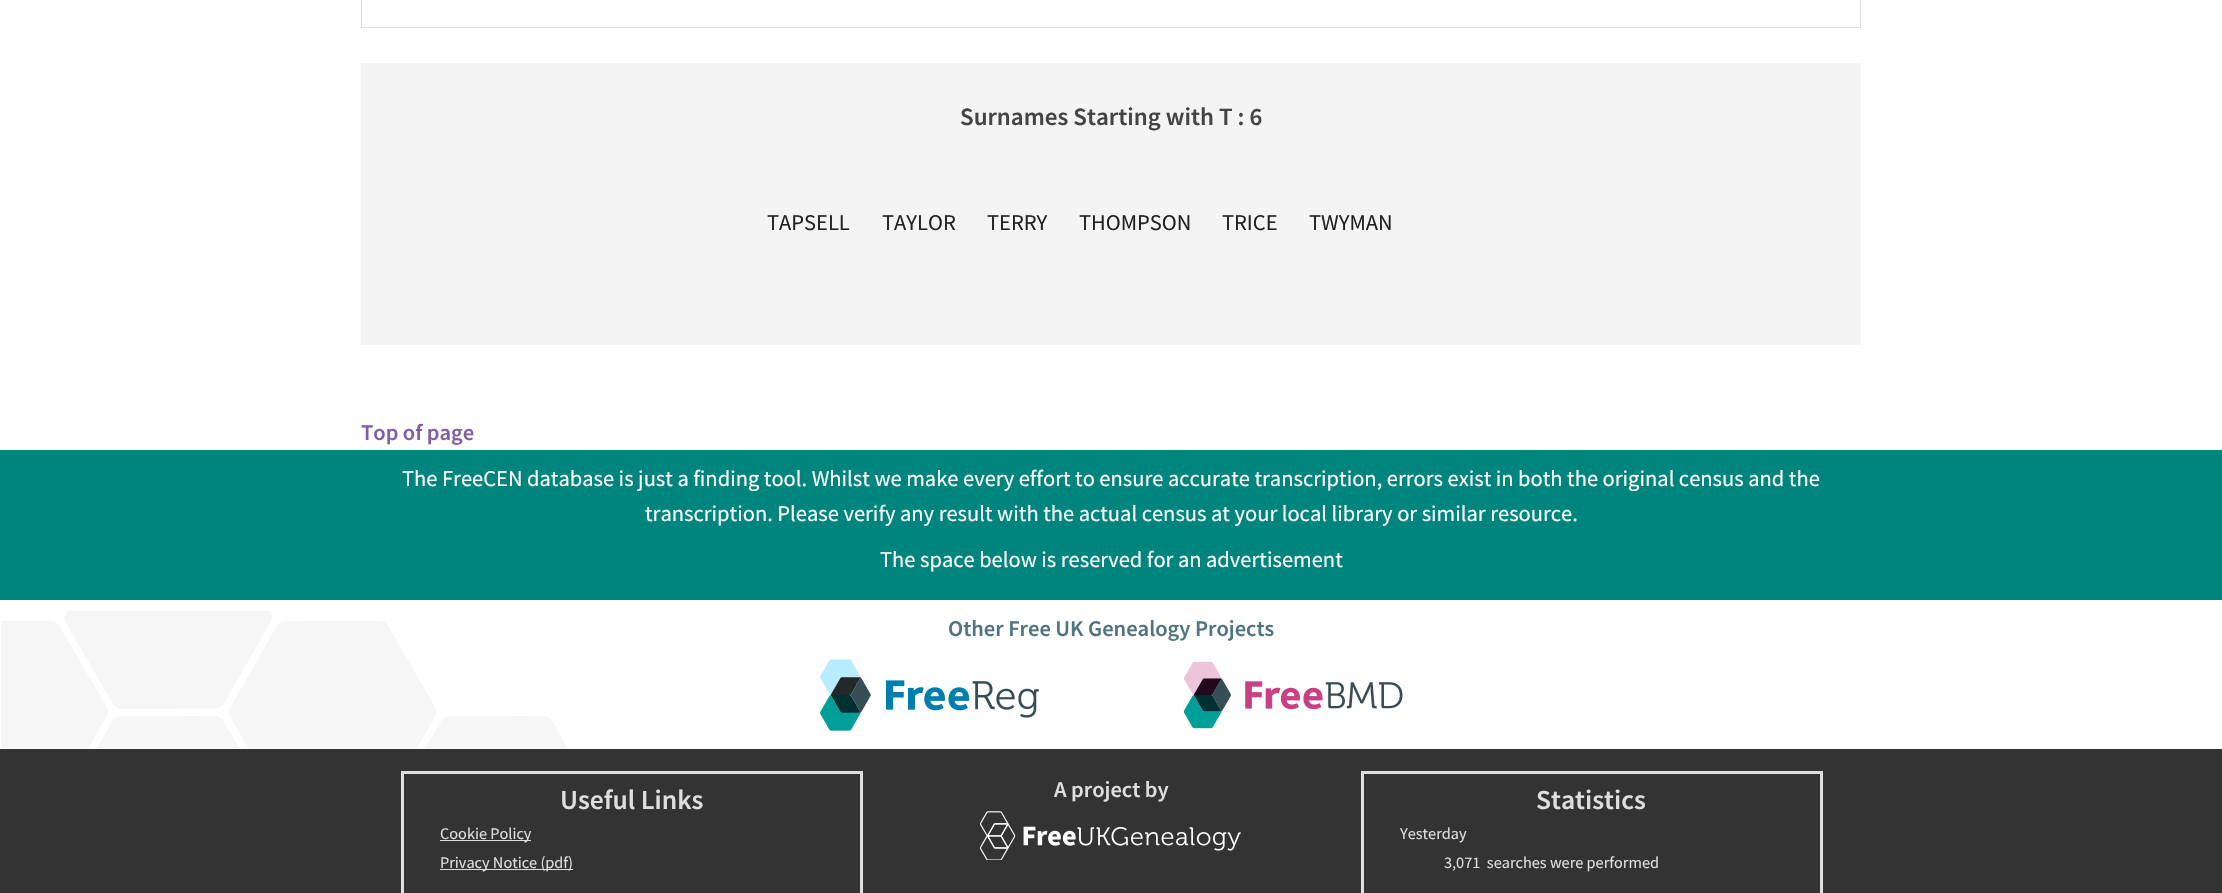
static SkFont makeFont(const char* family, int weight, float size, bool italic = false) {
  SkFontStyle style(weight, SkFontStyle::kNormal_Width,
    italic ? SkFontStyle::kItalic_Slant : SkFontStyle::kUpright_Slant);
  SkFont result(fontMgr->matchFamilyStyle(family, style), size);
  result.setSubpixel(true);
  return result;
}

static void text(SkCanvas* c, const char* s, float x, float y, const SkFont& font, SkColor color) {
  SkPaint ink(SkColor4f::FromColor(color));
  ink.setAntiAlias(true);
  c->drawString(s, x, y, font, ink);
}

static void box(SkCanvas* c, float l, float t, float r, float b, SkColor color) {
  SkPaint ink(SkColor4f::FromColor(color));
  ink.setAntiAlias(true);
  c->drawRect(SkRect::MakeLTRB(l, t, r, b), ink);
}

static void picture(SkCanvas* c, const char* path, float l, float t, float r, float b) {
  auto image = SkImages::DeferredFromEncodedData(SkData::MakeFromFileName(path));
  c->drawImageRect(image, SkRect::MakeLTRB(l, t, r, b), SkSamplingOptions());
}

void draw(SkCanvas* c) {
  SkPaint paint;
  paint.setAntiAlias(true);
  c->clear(0xffffffff);
  paint.setStyle(SkPaint::kStroke_Style);
  paint.setStrokeWidth(1);
  paint.setColor(0xffdedede);
  c->drawRect(SkRect::MakeLTRB(361.5f, -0.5f, 1860.5f, 27.5f), paint);
  box(c, 361, 63, 1861, 345, 0xfff4f4f4);
  SkFont face1 = makeFont("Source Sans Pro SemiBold", 600, 25);
  text(c, "Surnames Starting with T : 6", 960, 125, face1, 0xff444444);
  SkFont face2 = makeFont("Source Sans Pro", 400, 22.5f);
  text(c, "TAPSELL", 767, 230, face2, 0xff222222);
  text(c, "TAYLOR", 882, 230, face2, 0xff222222);
  text(c, "TERRY", 987, 230, face2, 0xff222222);
  text(c, "THOMPSON", 1079, 230, face2, 0xff222222);
  text(c, "TRICE", 1222, 230, face2, 0xff222222);
  text(c, "TWYMAN", 1309, 230, face2, 0xff222222);
  SkFont face3 = makeFont("Source Sans Pro SemiBold", 600, 22.5f);
  text(c, "Top of page", 361, 440, face3, 0xff825da8);
  box(c, 0, 450, 2222, 600, 0xff00857e);
  text(c, "The FreeCEN database is just a finding tool. Whilst we make every effort to ensure accurate transcription, errors exist in both the original census and the", 402, 486, face2, 0xffffffff);
  text(c, "transcription. Please verify any result with the actual census at your local library or similar resource.", 645, 521, face2, 0xffffffff);
  text(c, "The space below is reserved for an advertisement", 880, 567, face2, 0xffffffff);
  picture(c, "img_01.png", 1, 611, 568, 749);
  text(c, "Other Free UK Genealogy Projects", 948, 636, face3, 0xff517481);
  picture(c, "img_02.png", 820, 659, 1039, 731);
  picture(c, "img_03.png", 1184, 661, 1403, 729);
  box(c, 0, 749, 2222, 893, 0xff333333);
  paint.setStrokeWidth(3);
  c->drawRect(SkRect::MakeLTRB(402.5f, 772.5f, 861.5f, 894.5f), paint);
  SkFont face4 = makeFont("Source Sans Pro SemiBold", 600, 27.5f);
  text(c, "Useful Links", 560, 809, face4, 0xffdedede);
  box(c, 440, 840, 531, 841, 0xffdedede);
  SkFont face5 = makeFont("Source Sans Pro", 400, 16.25f);
  text(c, "Cookie Policy", 440, 839, face5, 0xffdedede);
  box(c, 440, 869, 573, 870, 0xffdedede);
  text(c, "Privacy Notice (pdf)", 440, 868, face5, 0xffdedede);
  text(c, "A project by", 1054, 797, face3, 0xffdedede);
  picture(c, "img_04.png", 979, 811, 1241, 860);
  c->drawRect(SkRect::MakeLTRB(1362.5f, 772.5f, 1821.5f, 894.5f), paint);
  text(c, "Statistics", 1536, 809, face4, 0xffdedede);
  text(c, "Yesterday", 1400, 839, face5, 0xffdedede);
  text(c, "3,071  searches were performed", 1444, 868, face5, 0xffdedede);
}
